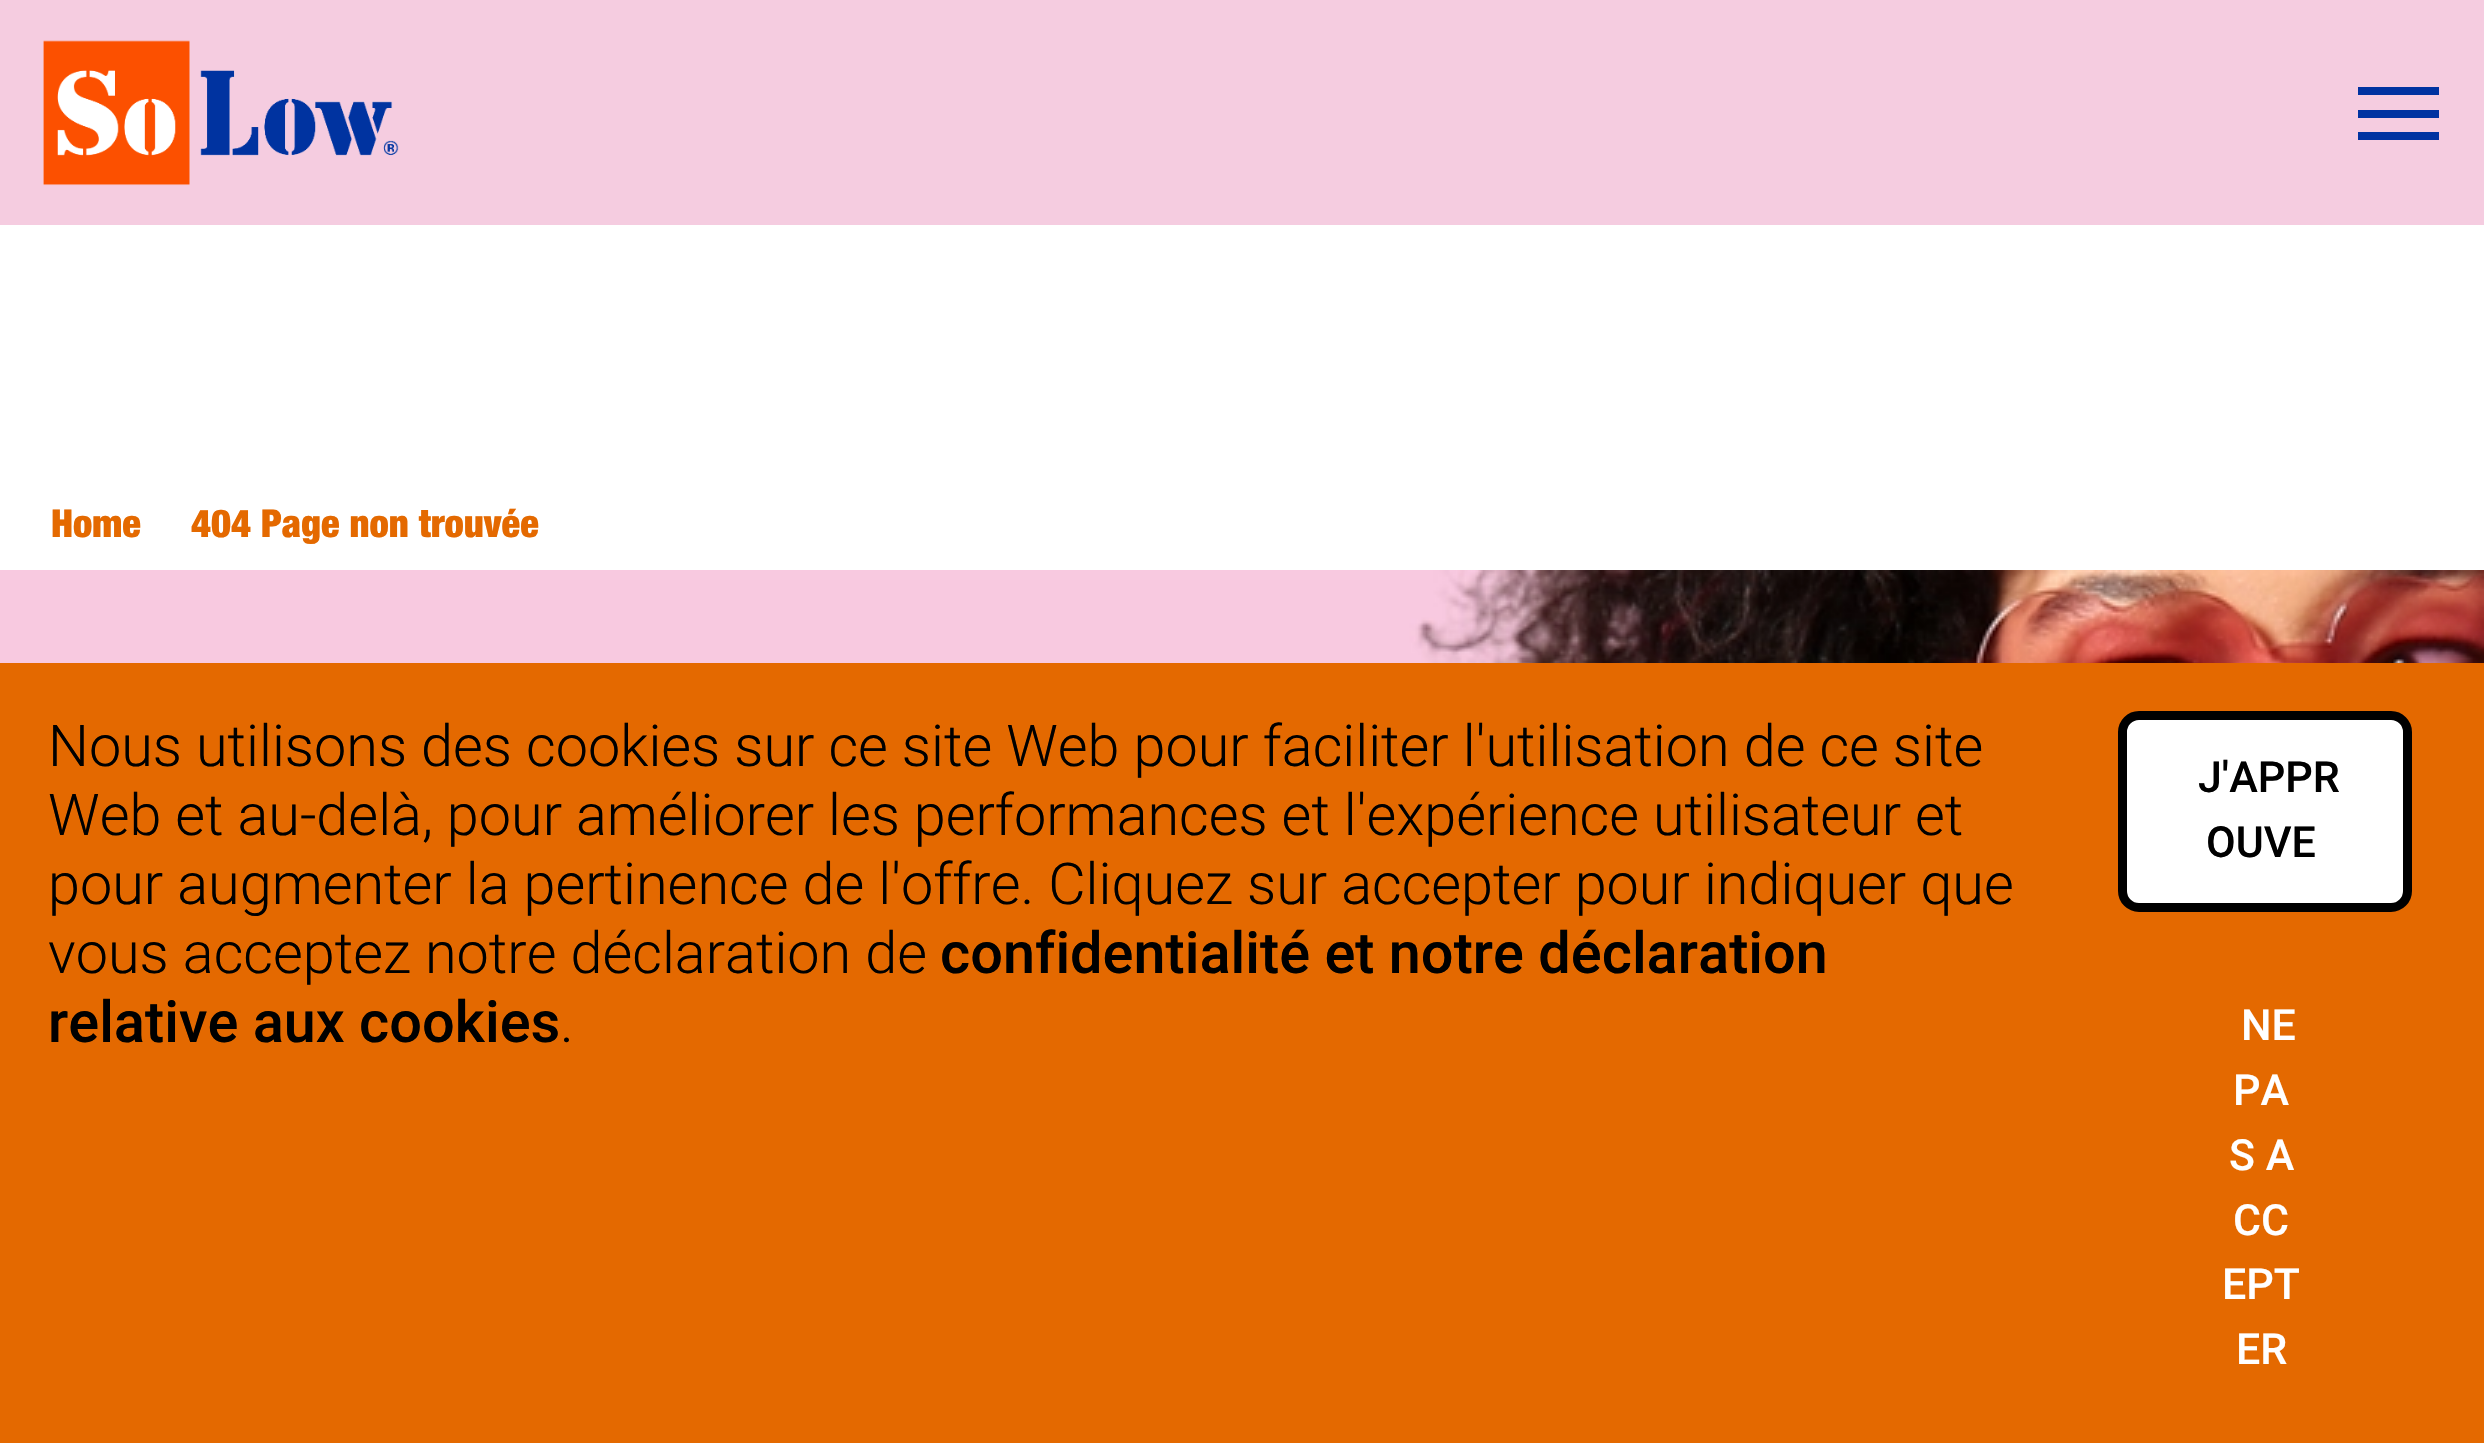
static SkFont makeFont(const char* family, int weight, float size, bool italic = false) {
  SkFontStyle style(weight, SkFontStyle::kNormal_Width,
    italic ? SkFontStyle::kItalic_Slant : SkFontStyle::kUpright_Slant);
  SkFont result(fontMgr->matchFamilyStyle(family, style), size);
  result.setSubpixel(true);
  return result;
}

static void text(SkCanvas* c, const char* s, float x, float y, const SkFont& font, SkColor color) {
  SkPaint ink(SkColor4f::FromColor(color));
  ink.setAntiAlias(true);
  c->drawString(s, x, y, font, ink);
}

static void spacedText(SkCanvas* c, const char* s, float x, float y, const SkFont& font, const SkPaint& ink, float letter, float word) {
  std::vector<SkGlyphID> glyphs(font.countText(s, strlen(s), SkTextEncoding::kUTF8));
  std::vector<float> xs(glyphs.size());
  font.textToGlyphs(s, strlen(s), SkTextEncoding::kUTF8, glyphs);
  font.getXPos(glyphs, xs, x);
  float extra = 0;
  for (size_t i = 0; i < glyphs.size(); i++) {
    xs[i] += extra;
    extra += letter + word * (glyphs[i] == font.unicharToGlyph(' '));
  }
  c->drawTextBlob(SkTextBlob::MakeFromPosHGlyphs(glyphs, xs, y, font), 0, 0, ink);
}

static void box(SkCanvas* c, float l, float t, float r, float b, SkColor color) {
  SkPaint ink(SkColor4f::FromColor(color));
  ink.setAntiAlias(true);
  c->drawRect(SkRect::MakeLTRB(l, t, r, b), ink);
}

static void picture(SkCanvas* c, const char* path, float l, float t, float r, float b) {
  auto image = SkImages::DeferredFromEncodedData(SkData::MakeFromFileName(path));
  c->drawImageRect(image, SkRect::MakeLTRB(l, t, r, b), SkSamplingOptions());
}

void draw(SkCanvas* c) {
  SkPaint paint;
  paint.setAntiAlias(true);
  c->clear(0xffffffff);
  box(c, 0, 0, 2484, 225, 0xfff5cce0);
  picture(c, "img_01.png", 43, 40, 399, 186);
  box(c, 2358, 87, 2439, 95, 0xff0033a1);
  box(c, 2358, 110, 2439, 118, 0xff0033a1);
  box(c, 2358, 132, 2439, 140, 0xff0033a1);
  SkFont face1 = makeFont("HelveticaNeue", 900, 38.5f);
  text(c, "Home", 51, 537, face1, 0xffe46900);
  text(c, "404 Page non trouvée", 191, 537, face1, 0xffe46900);
  picture(c, "img_02.png", 0, 570, 2484, 663);
  box(c, 0, 663, 2484, 1443, 0xffe46900);
  SkFont face2 = makeFont("Roboto", 300, 57.6f);
  text(c, "Nous utilisons des cookies sur ce site Web pour faciliter l'utilisation de ce site", 48, 766, face2, 0xff000000);
  paint.setColor(0xff000000);
  spacedText(c, "Web et au-delà, pour améliorer les performances et l'expérience utilisateur et", 48, 835, face2, paint, 0, -0.1f);
  text(c, "pour augmenter la pertinence de l'offre. Cliquez sur accepter pour indiquer que", 48, 904, face2, 0xff000000);
  text(c, "vous acceptez notre déclaration de", 48, 973, face2, 0xff000000);
  SkFont face3 = makeFont("Roboto", 500, 57.6f);
  text(c, "confidentialité et notre déclaration", 940, 973, face3, 0xff000000);
  text(c, "relative aux cookies", 48, 1042, face3, 0xff000000);
  text(c, ".", 560, 1042, face2, 0xff000000);
  paint.setColor(0xffffffff);
  c->drawRoundRect(SkRect::MakeLTRB(2122.5f, 715.5f, 2407.5f, 907.5f), 16.5f, 16.5f, paint);
  paint.setStyle(SkPaint::kStroke_Style);
  paint.setStrokeWidth(9);
  paint.setColor(0xff000000);
  c->drawRoundRect(SkRect::MakeLTRB(2122.5f, 715.5f, 2407.5f, 907.5f), 16.5f, 16.5f, paint);
  SkFont face4 = makeFont("Roboto", 500, 43);
  text(c, "J'APPR", 2198, 792, face4, 0xff000000);
  text(c, "OUVE", 2206, 857, face4, 0xff000000);
  text(c, "NE", 2241, 1040, face4, 0xffffffff);
  text(c, "PA", 2233, 1105, face4, 0xffffffff);
  text(c, "S A", 2229, 1170, face4, 0xffffffff);
  text(c, "CC", 2233, 1235, face4, 0xffffffff);
  text(c, "EPT", 2222, 1299, face4, 0xffffffff);
  text(c, "ER", 2236, 1364, face4, 0xffffffff);
}
